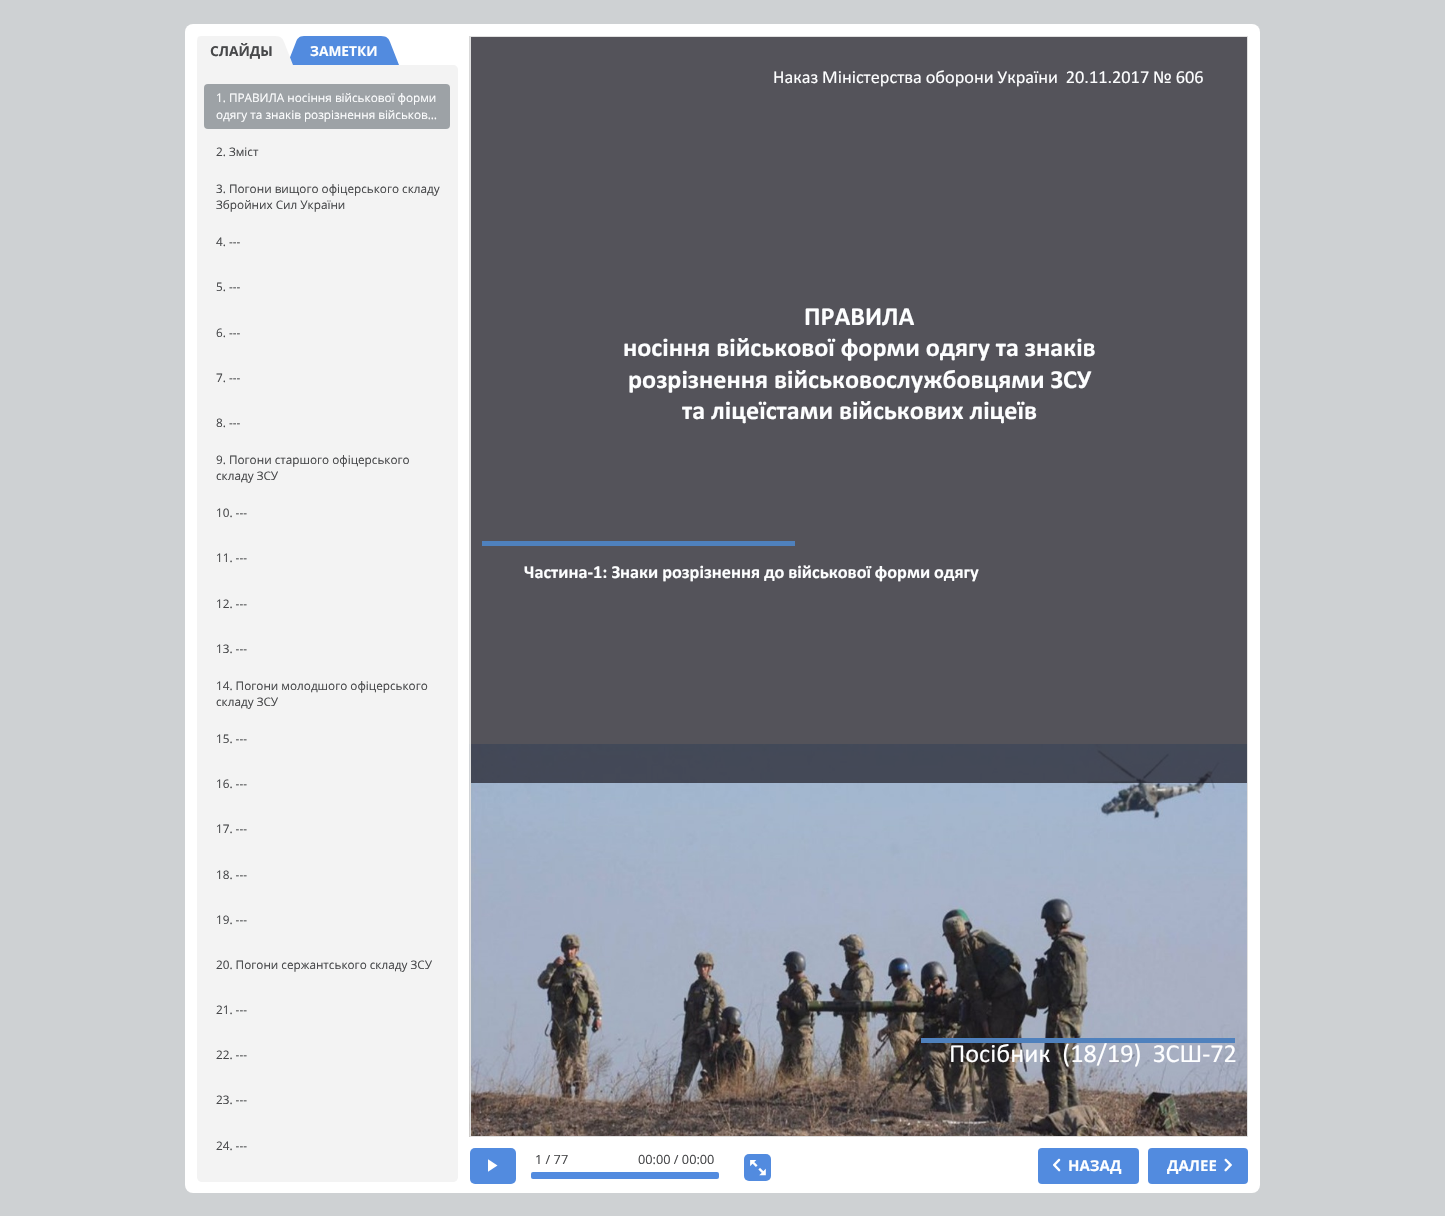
static SkFont makeFont(const char* family, int weight, float size, bool italic = false) {
  SkFontStyle style(weight, SkFontStyle::kNormal_Width,
    italic ? SkFontStyle::kItalic_Slant : SkFontStyle::kUpright_Slant);
  SkFont result(fontMgr->matchFamilyStyle(family, style), size);
  result.setSubpixel(true);
  return result;
}

static void text(SkCanvas* c, const char* s, float x, float y, const SkFont& font, SkColor color) {
  SkPaint ink(SkColor4f::FromColor(color));
  ink.setAntiAlias(true);
  c->drawString(s, x, y, font, ink);
}

static void spacedText(SkCanvas* c, const char* s, float x, float y, const SkFont& font, const SkPaint& ink, float letter, float word) {
  std::vector<SkGlyphID> glyphs(font.countText(s, strlen(s), SkTextEncoding::kUTF8));
  std::vector<float> xs(glyphs.size());
  font.textToGlyphs(s, strlen(s), SkTextEncoding::kUTF8, glyphs);
  font.getXPos(glyphs, xs, x);
  float extra = 0;
  for (size_t i = 0; i < glyphs.size(); i++) {
    xs[i] += extra;
    extra += letter + word * (glyphs[i] == font.unicharToGlyph(' '));
  }
  c->drawTextBlob(SkTextBlob::MakeFromPosHGlyphs(glyphs, xs, y, font), 0, 0, ink);
}

static void box(SkCanvas* c, float l, float t, float r, float b, SkColor color) {
  SkPaint ink(SkColor4f::FromColor(color));
  ink.setAntiAlias(true);
  c->drawRect(SkRect::MakeLTRB(l, t, r, b), ink);
}

static void roundBox(SkCanvas* c, float l, float t, float r, float b, float radius, SkColor color) {
  SkPaint ink(SkColor4f::FromColor(color));
  ink.setAntiAlias(true);
  c->drawRoundRect(SkRect::MakeLTRB(l, t, r, b), radius, radius, ink);
}

static void picture(SkCanvas* c, const char* path, float l, float t, float r, float b) {
  auto image = SkImages::DeferredFromEncodedData(SkData::MakeFromFileName(path));
  c->drawImageRect(image, SkRect::MakeLTRB(l, t, r, b), SkSamplingOptions());
}

void draw(SkCanvas* c) {
  SkPaint paint;
  paint.setAntiAlias(true);
  c->clear(0xffced1d3);
  roundBox(c, 185, 24, 1260, 1193, 8, 0xffffffff);
  paint.setColor(0xff528bdf);
  c->drawPath(SkPathBuilder().moveTo(304, 36).cubicTo(299, 36, 297, 39, 296, 42).lineTo(287, 65).lineTo(399, 65).lineTo(390, 42).cubicTo(389, 39, 387, 36, 381, 36).close().detach(), paint);
  c->save();
  c->clipRect(SkRect::MakeLTRB(197, 36, 293, 65));
  paint.setColor(0xfff3f3f3);
  c->drawPath(SkPathBuilder().moveTo(198, 37).cubicTo(196, 40, 197, 61, 197, 65).lineTo(293, 65).lineTo(284, 42).cubicTo(283, 39, 281, 36, 275, 36).lineTo(202, 36).cubicTo(201, 36, 199, 36, 198, 37).close().detach(), paint);
  c->restore();
  SkFont face1 = makeFont("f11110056", 700, 13.75f);
  text(c, "СЛАЙДЫ", 210, 56, face1, 0xff47484a);
  text(c, "ЗАМЕТКИ", 310, 56, face1, 0xfffdfeff);
  c->save();
  c->clipPath(SkPathBuilder().moveTo(201, 36).lineTo(454, 36).cubicTo(456, 36, 458, 38, 458, 40).lineTo(458, 1178).cubicTo(458, 1180, 456, 1182, 454, 1182).lineTo(201, 1182).cubicTo(199, 1182, 197, 1180, 197, 1178).lineTo(197, 40).cubicTo(197, 38, 199, 36, 201, 36).close().detach(), true);
  c->drawPath(SkPathBuilder().moveTo(197, 65).lineTo(453, 65).cubicTo(456, 65, 458, 67, 458, 70).lineTo(458, 1177).cubicTo(458, 1180, 456, 1182, 453, 1182).lineTo(202, 1182).cubicTo(199, 1182, 197, 1180, 197, 1177).close().detach(), paint);
  c->restore();
  roundBox(c, 204, 84, 450, 129, 4, 0xff9da2a6);
  SkFont face2 = makeFont("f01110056", 400, 11.75f);
  text(c, "1. ПРАВИЛА носіння військової форми", 216, 102, face2, 0xfffdfeff);
  text(c, "одягу та знаків розрізнення військов…", 216, 119, face2, 0xfffdfeff);
  text(c, "2. Зміст", 216, 156, face2, 0xff47484a);
  text(c, "3. Погони вищого офіцерського складу", 216, 193, face2, 0xff47484a);
  text(c, "Збройних Сил України", 216, 209, face2, 0xff47484a);
  text(c, "4. ---", 216, 246, face2, 0xff47484a);
  text(c, "5. ---", 216, 291, face2, 0xff47484a);
  text(c, "6. ---", 216, 337, face2, 0xff47484a);
  text(c, "7. ---", 216, 382, face2, 0xff47484a);
  text(c, "8. ---", 216, 427, face2, 0xff47484a);
  text(c, "9. Погони старшого офіцерського", 216, 464, face2, 0xff47484a);
  text(c, "складу ЗСУ", 216, 480, face2, 0xff47484a);
  text(c, "10. ---", 216, 517, face2, 0xff47484a);
  text(c, "11. ---", 216, 562, face2, 0xff47484a);
  text(c, "12. ---", 216, 608, face2, 0xff47484a);
  text(c, "13. ---", 216, 653, face2, 0xff47484a);
  text(c, "14. Погони молодшого офіцерського", 216, 690, face2, 0xff47484a);
  text(c, "складу ЗСУ", 216, 706, face2, 0xff47484a);
  text(c, "15. ---", 216, 743, face2, 0xff47484a);
  text(c, "16. ---", 216, 788, face2, 0xff47484a);
  text(c, "17. ---", 216, 833, face2, 0xff47484a);
  text(c, "18. ---", 216, 879, face2, 0xff47484a);
  text(c, "19. ---", 216, 924, face2, 0xff47484a);
  text(c, "20. Погони сержантського складу ЗСУ", 216, 969, face2, 0xff47484a);
  text(c, "21. ---", 216, 1014, face2, 0xff47484a);
  text(c, "22. ---", 216, 1059, face2, 0xff47484a);
  text(c, "23. ---", 216, 1104, face2, 0xff47484a);
  text(c, "24. ---", 216, 1150, face2, 0xff47484a);
  box(c, 469, 36, 1247, 1137, 0xffd9d9d9);
  picture(c, "img_01.png", 469, 744, 1247, 1137);
  box(c, 471, 37, 1247, 783, 0xb31b1a23);
  box(c, 482, 541, 795, 546, 0xff4f81bd);
  box(c, 921, 1038, 1235, 1043, 0xff4f81bd);
  paint.setStyle(SkPaint::kStroke_Style);
  paint.setStrokeWidth(1);
  paint.setColor(0xffe0e0e0);
  c->drawRect(SkRect::MakeLTRB(470.5f, 36.5f, 1247.5f, 1136.5f), paint);
  SkFont face3 = makeFont("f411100", 400, 18.3f);
  paint.setStyle(SkPaint::kFill_Style);
  paint.setColor(0xfffdfeff);
  spacedText(c, "Наказ Міністерства оборони України  20.11.2017 № 606", 773, 83, face3, paint, 0, -0.25f);
  SkFont face4 = makeFont("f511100", 700, 26.2f);
  text(c, "ПРАВИЛА", 804, 325, face4, 0xfffdfeff);
  text(c, "носіння військової форми одягу та знаків", 623, 356, face4, 0xfffdfeff);
  text(c, "розрізнення військовослужбовцями ЗСУ", 628, 388, face4, 0xfffdfeff);
  text(c, "та ліцеїстами військових ліцеїв", 682, 419, face4, 0xfffdfeff);
  SkFont face5 = makeFont("f511100", 700, 18.3f);
  text(c, "Частина-1: З", 524, 578, face5, 0xfffdfeff);
  spacedText(c, "наки розрізнення до військової форми одягу", 620, 578, face5, paint, 0, -0.25f);
  SkFont face6 = makeFont("f411100", 400, 26.2f);
  text(c, "Посібник  (18/19)", 949, 1062, face6, 0xfffdfeff);
  text(c, "ЗСШ-72", 1153, 1062, face6, 0xfffdfeff);
  roundBox(c, 470, 1148, 516, 1184, 5, 0xff528bdf);
  c->save();
  c->clipRect(SkRect::MakeLTRB(488, 1158, 498, 1173));
  paint.setColor(0xffffffff);
  c->drawPath(SkPathBuilder(SkPathFillType::kEvenOdd).moveTo(487, 1158.5f).lineTo(497.5f, 1165.5f).lineTo(487, 1172.5f).close().detach(), paint);
  c->restore();
  SkFont face7 = makeFont("f01110056", 400, 12.75f);
  text(c, "1 / 77", 535, 1164, face7, 0xff47484a);
  text(c, "00:00 / 00:00", 638, 1164, face7, 0xff47484a);
  roundBox(c, 531, 1172, 719, 1179, 2, 0xff528bdf);
  roundBox(c, 744, 1154, 771, 1181, 5, 0xff528bdf);
  picture(c, "img_02.png", 750, 1160, 766, 1176);
  roundBox(c, 1038, 1148, 1139, 1184, 4, 0xff528bdf);
  picture(c, "img_03.png", 1053, 1158, 1061, 1172);
  SkFont face8 = makeFont("f11110056", 700, 15);
  text(c, "НАЗАД", 1068, 1171, face8, 0xfffdfeff);
  roundBox(c, 1148, 1148, 1248, 1184, 4, 0xff528bdf);
  text(c, "ДАЛЕЕ", 1167, 1171, face8, 0xfffdfeff);
  picture(c, "img_04.png", 1224, 1158, 1232, 1172);
}
